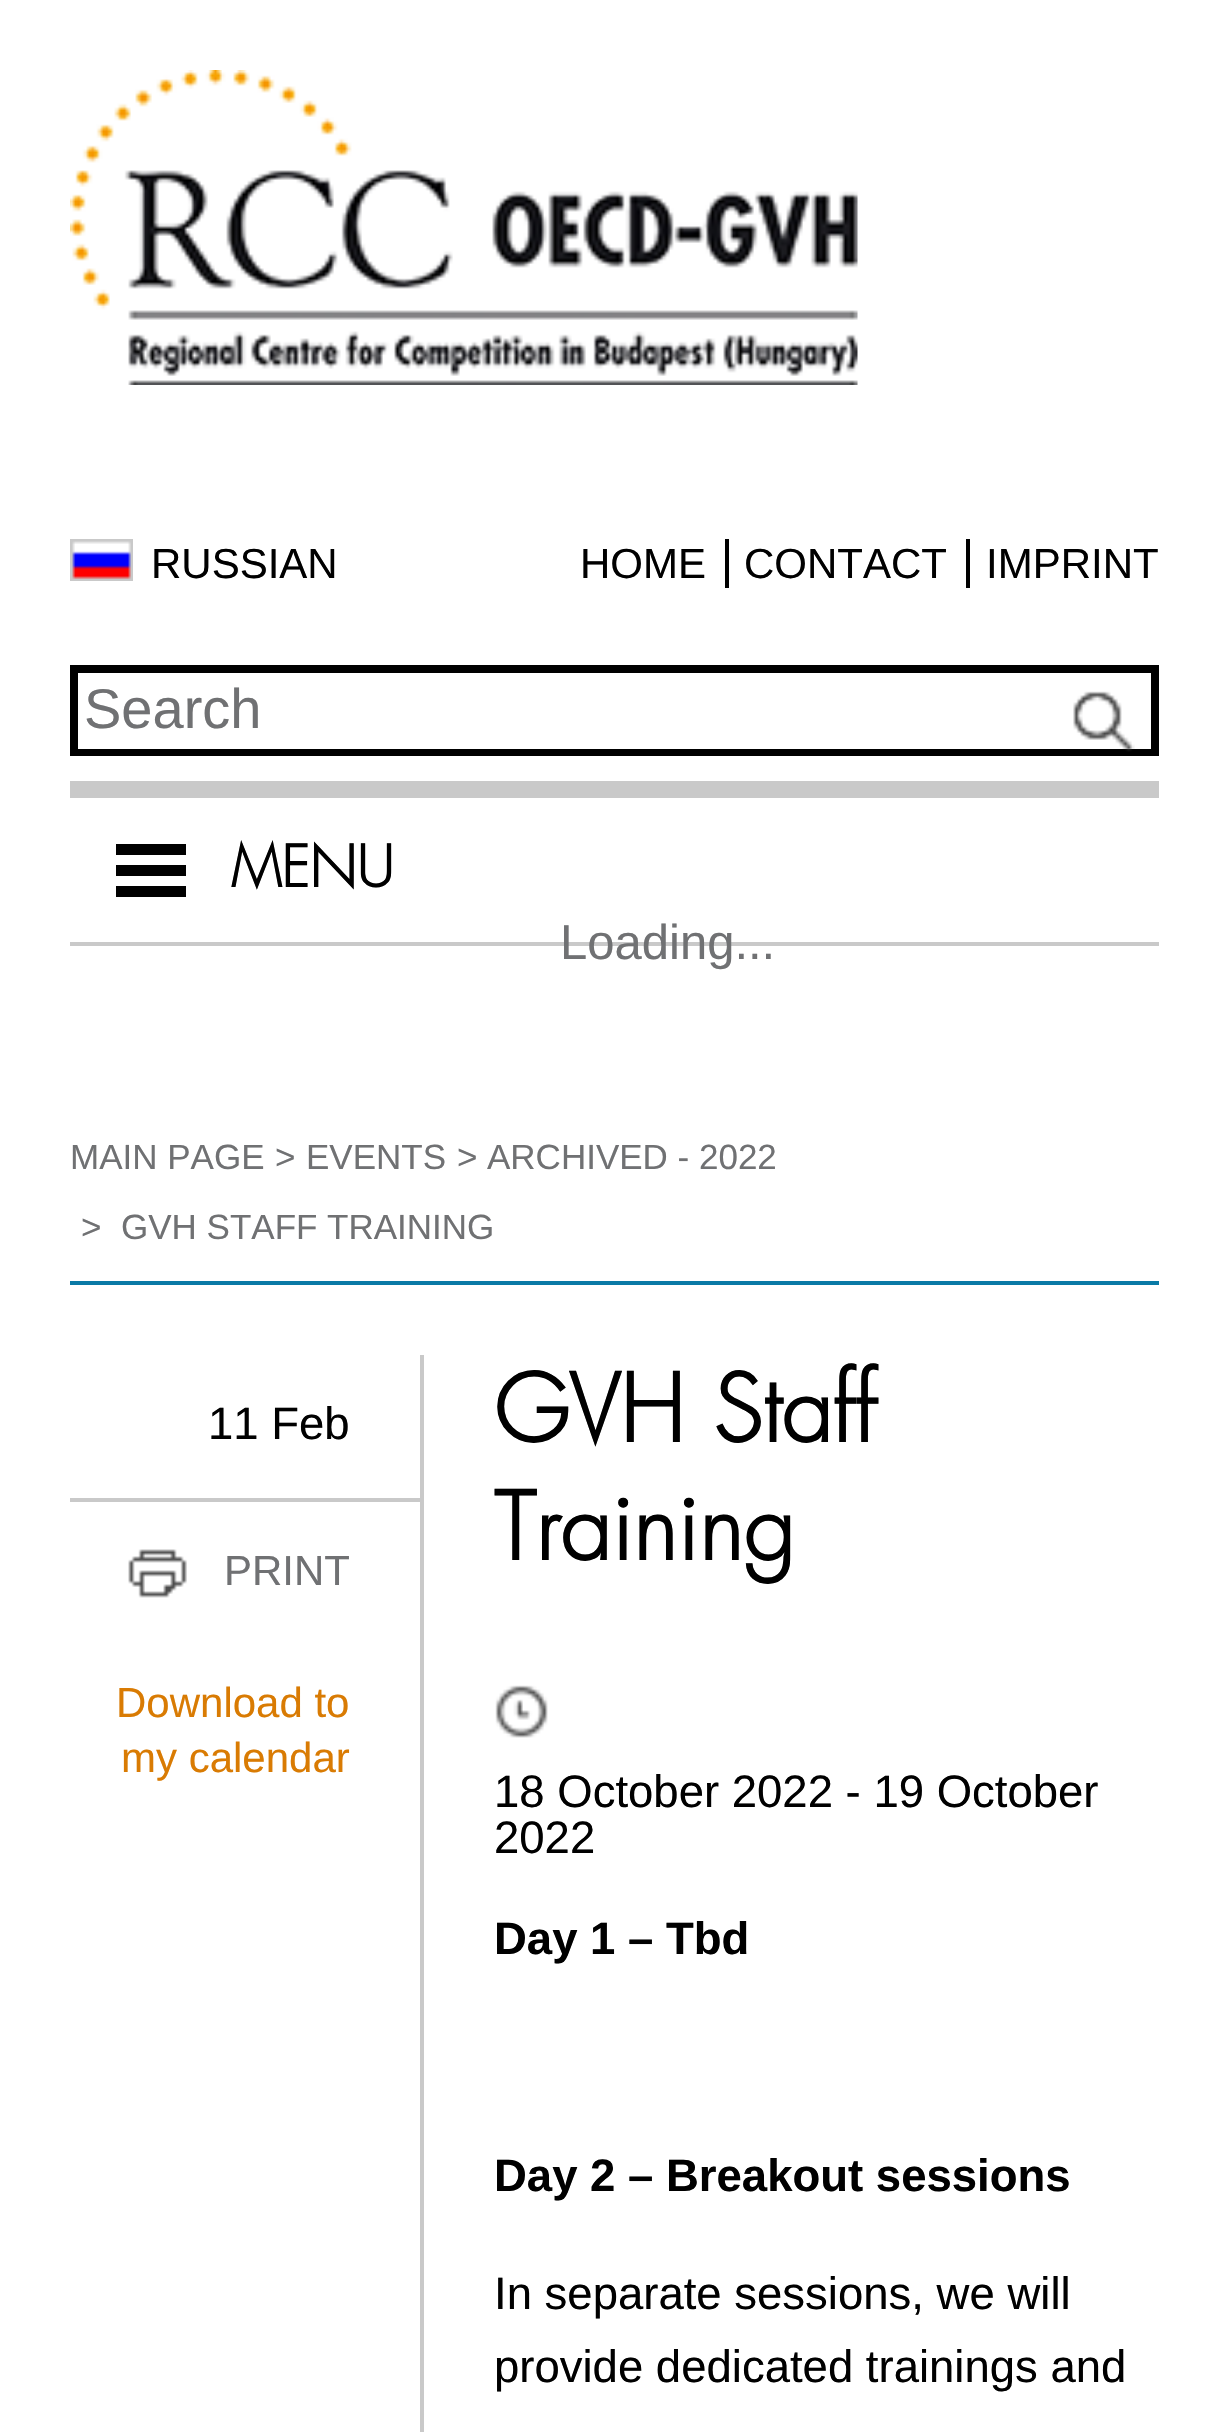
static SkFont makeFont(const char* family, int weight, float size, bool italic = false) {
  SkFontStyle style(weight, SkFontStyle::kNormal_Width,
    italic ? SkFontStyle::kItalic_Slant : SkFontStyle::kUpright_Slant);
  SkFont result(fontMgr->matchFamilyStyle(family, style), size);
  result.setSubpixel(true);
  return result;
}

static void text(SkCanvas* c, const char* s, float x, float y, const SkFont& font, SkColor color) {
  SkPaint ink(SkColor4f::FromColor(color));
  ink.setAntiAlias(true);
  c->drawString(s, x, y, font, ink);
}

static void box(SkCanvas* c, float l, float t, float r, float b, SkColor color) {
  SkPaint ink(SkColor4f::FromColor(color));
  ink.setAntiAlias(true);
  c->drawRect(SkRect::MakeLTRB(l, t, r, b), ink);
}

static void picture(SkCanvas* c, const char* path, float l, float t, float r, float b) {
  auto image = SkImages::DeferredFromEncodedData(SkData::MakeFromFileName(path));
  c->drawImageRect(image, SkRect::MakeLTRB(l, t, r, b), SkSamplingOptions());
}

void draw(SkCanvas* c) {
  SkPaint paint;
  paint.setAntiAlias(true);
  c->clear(0xffffffff);
  box(c, 70, 781, 1159, 798, 0xffc9c9c9);
  picture(c, "img_01.png", 70, 70, 858, 385);
  picture(c, "img_02.png", 70, 539, 133, 581);
  SkFont face1 = makeFont("Liberation Sans", 400, 42);
  text(c, "RUSSIAN", 151, 578, face1, 0xff000000);
  text(c, "HOME", 580, 578, face1, 0xff000000);
  box(c, 725, 539, 729, 588, 0xff000000);
  text(c, "CONTACT", 744, 578, face1, 0xff000000);
  box(c, 966, 539, 970, 588, 0xff000000);
  text(c, "IMPRINT", 986, 578, face1, 0xff000000);
  paint.setStyle(SkPaint::kStroke_Style);
  paint.setStrokeWidth(4);
  paint.setColor(0xff000000);
  c->drawRect(SkRect::MakeLTRB(72, 667, 1157, 754), paint);
  c->drawRect(SkRect::MakeLTRB(76, 671, 1153, 751), paint);
  SkFont face2 = makeFont("Liberation Sans", 400, 56);
  text(c, "Search", 84, 728, face2, 0xff707173);
  picture(c, "img_03.png", 1073, 691, 1135, 752);
  box(c, 70, 942, 1159, 946, 0xffc9c9c9);
  box(c, 116, 844, 186, 855, 0xff000000);
  box(c, 116, 865, 186, 876, 0xff000000);
  box(c, 116, 886, 186, 897, 0xff000000);
  SkFont face3 = makeFont("Futura", 700, 56);
  text(c, "MENU", 231, 887, face3, 0xff000000);
  SkFont face4 = makeFont("Liberation Sans", 400, 49);
  text(c, "Loading...", 560, 959, face4, 0xff707173);
  box(c, 70, 1281, 1159, 1285, 0xff0a7aa6);
  SkFont face5 = makeFont("Liberation Sans", 400, 35);
  text(c, "MAIN PAGE", 70, 1169, face5, 0xff707173);
  text(c, ">", 275, 1169, face5, 0xff707173);
  text(c, "EVENTS", 306, 1169, face5, 0xff707173);
  text(c, ">", 457, 1169, face5, 0xff707173);
  text(c, "ARCHIVED - 2022", 487, 1169, face5, 0xff707173);
  text(c, ">", 81, 1239, face5, 0xff707173);
  text(c, "GVH STAFF TRAINING", 121, 1239, face5, 0xff707173);
  SkFont face6 = makeFont("Liberation Sans", 400, 45.5f);
  text(c, "11 Feb", 208, 1439, face6, 0xff000000);
  box(c, 70, 1498, 420, 1502, 0xffc9c9c9);
  picture(c, "img_04.png", 128, 1549, 187, 1598);
  text(c, "PRINT", 224, 1585, face1, 0xff707173);
  text(c, "Download to", 116, 1717, face1, 0xffd97b03);
  text(c, "my calendar", 121, 1772, face1, 0xffd97b03);
  box(c, 420, 1355, 424, 2432, 0xffc9c9c9);
  SkFont face7 = makeFont("Futura", 700, 91);
  text(c, "GVH Staff", 494, 1442, face7, 0xff000000);
  text(c, "Training", 494, 1560, face7, 0xff000000);
  picture(c, "img_05.png", 495, 1685, 548, 1738);
  text(c, "18 October 2022 - 19 October", 494, 1807, face6, 0xff000000);
  text(c, "2022", 494, 1853, face6, 0xff000000);
  SkFont face8 = makeFont("Liberation Sans", 700, 45.5f);
  text(c, "Day 1 – Tbd", 494, 1954, face8, 0xff000000);
  text(c, "Day 2 – Breakout sessions", 494, 2191, face8, 0xff000000);
  text(c, "In separate sessions, we will", 494, 2309, face6, 0xff000000);
  text(c, "provide dedicated trainings and", 494, 2382, face6, 0xff000000);
}
